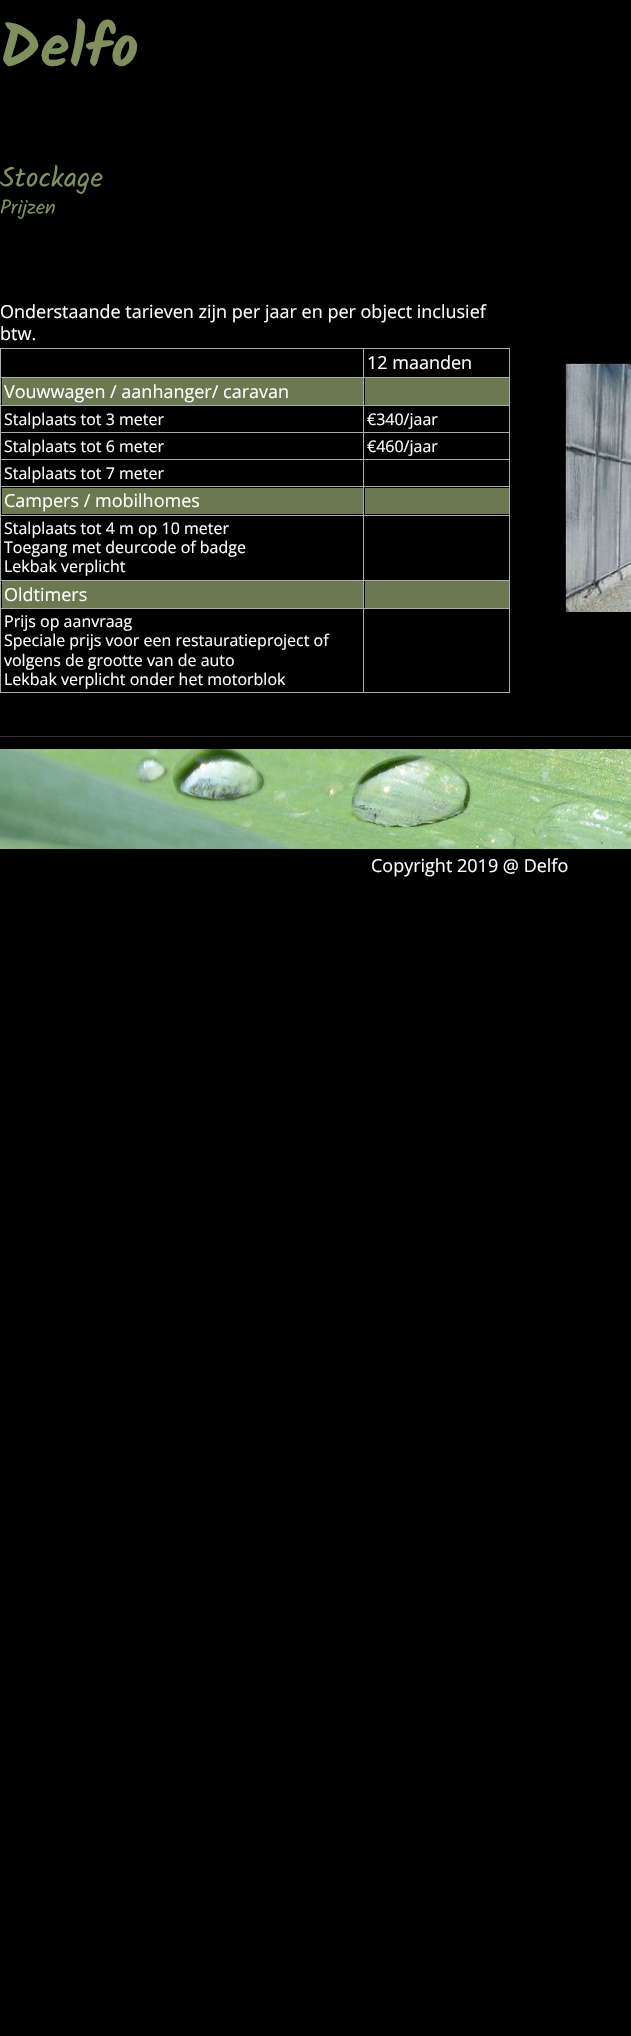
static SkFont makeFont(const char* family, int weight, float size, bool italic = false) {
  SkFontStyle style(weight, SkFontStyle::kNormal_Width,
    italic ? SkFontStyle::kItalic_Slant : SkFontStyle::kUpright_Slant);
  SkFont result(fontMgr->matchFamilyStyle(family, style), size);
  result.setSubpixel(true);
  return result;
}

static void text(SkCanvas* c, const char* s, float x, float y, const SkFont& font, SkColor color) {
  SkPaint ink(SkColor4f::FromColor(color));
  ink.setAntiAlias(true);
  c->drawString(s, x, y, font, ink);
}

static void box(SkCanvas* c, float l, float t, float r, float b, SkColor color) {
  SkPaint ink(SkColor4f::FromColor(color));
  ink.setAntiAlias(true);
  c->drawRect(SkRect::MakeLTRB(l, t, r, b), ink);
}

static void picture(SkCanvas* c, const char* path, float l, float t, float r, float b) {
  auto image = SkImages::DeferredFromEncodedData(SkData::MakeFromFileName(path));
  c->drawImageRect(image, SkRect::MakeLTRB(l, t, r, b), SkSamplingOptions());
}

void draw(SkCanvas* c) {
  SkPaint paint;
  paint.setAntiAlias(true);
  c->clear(0xff000000);
  SkFont face1 = makeFont("Kalam", 700, 60);
  text(c, "Delfo", 0, 67, face1, 0xff808f5e);
  SkFont face2 = makeFont("Kalam", 400, 28);
  text(c, "Stockage", 0, 187, face2, 0xff808f5e);
  SkFont face3 = makeFont("Kalam", 400, 20);
  text(c, "Prijzen", 0, 214, face3, 0xff808f5e);
  SkFont face4 = makeFont("Open Sans", 400, 18);
  text(c, "Onderstaande tarieven zijn per jaar en per object inclusief", 0, 318, face4, 0xffffffff);
  text(c, "btw.", 0, 340, face4, 0xffffffff);
  box(c, 363, 348, 510, 349, 0xffacacac);
  box(c, 363, 377, 510, 378, 0xffacacac);
  box(c, 363, 405, 510, 406, 0xffacacac);
  box(c, 363, 432, 510, 433, 0xffacacac);
  box(c, 363, 459, 510, 460, 0xffacacac);
  box(c, 363, 486, 510, 487, 0xffacacac);
  box(c, 363, 515, 510, 516, 0xffacacac);
  box(c, 363, 580, 510, 581, 0xffacacac);
  box(c, 363, 608, 510, 609, 0xffacacac);
  box(c, 509, 608, 510, 693, 0xffacacac);
  box(c, 363, 692, 510, 693, 0xffacacac);
  box(c, 363, 608, 364, 693, 0xffacacac);
  box(c, 0, 608, 364, 609, 0xffacacac);
  box(c, 363, 580, 364, 609, 0xffacacac);
  box(c, 0, 580, 364, 581, 0xffacacac);
  box(c, 363, 515, 364, 581, 0xffacacac);
  box(c, 0, 515, 364, 516, 0xffacacac);
  box(c, 363, 486, 364, 516, 0xffacacac);
  box(c, 0, 486, 364, 487, 0xffacacac);
  box(c, 363, 459, 364, 487, 0xffacacac);
  box(c, 0, 459, 364, 460, 0xffacacac);
  box(c, 363, 432, 364, 460, 0xffacacac);
  box(c, 0, 432, 364, 433, 0xffacacac);
  box(c, 363, 405, 364, 433, 0xffacacac);
  box(c, 0, 405, 364, 406, 0xffacacac);
  box(c, 363, 377, 364, 406, 0xffacacac);
  box(c, 0, 377, 364, 378, 0xffacacac);
  box(c, 363, 348, 364, 378, 0xffacacac);
  box(c, 0, 348, 364, 349, 0xffacacac);
  box(c, 0, 692, 364, 693, 0xffacacac);
  box(c, 0, 608, 1, 693, 0xffacacac);
  box(c, 0, 580, 1, 609, 0xffacacac);
  box(c, 0, 515, 1, 581, 0xffacacac);
  box(c, 0, 486, 1, 516, 0xffacacac);
  box(c, 0, 459, 1, 487, 0xffacacac);
  box(c, 0, 432, 1, 460, 0xffacacac);
  box(c, 0, 405, 1, 433, 0xffacacac);
  box(c, 0, 377, 1, 406, 0xffacacac);
  box(c, 0, 348, 1, 378, 0xffacacac);
  box(c, 509, 580, 510, 609, 0xffacacac);
  box(c, 509, 515, 510, 581, 0xffacacac);
  box(c, 509, 486, 510, 516, 0xffacacac);
  box(c, 509, 459, 510, 487, 0xffacacac);
  box(c, 509, 432, 510, 460, 0xffacacac);
  box(c, 509, 405, 510, 433, 0xffacacac);
  box(c, 509, 377, 510, 406, 0xffacacac);
  box(c, 509, 348, 510, 378, 0xffacacac);
  text(c, "12 maanden", 367, 369, face4, 0xffffffff);
  box(c, 2, 378, 363, 405, 0xff6c784f);
  text(c, "Vouwwagen / aanhanger/ caravan", 4, 398, face4, 0xffffffff);
  box(c, 365, 378, 509, 405, 0xff6c784f);
  SkFont face5 = makeFont("Open Sans", 400, 16);
  text(c, "Stalplaats tot 3 meter", 4, 425, face5, 0xffffffff);
  text(c, "€340/jaar", 367, 425, face5, 0xffffffff);
  text(c, "Stalplaats tot 6 meter", 4, 452, face5, 0xffffffff);
  text(c, "€460/jaar", 367, 452, face5, 0xffffffff);
  text(c, "Stalplaats tot 7 meter", 4, 479, face5, 0xffffffff);
  box(c, 2, 488, 363, 514, 0xff6c784f);
  text(c, "Campers / mobilhomes", 4, 507, face4, 0xffffffff);
  box(c, 365, 488, 509, 514, 0xff6c784f);
  text(c, "Stalplaats tot 4 m op 10 meter", 4, 534, face5, 0xffffffff);
  text(c, "Toegang met deurcode of badge", 4, 553, face5, 0xffffffff);
  text(c, "Lekbak verplicht", 4, 572, face5, 0xffffffff);
  box(c, 2, 581, 363, 608, 0xff6c784f);
  text(c, "Oldtimers", 4, 601, face4, 0xffffffff);
  box(c, 365, 581, 509, 608, 0xff6c784f);
  text(c, "Prijs op aanvraag", 4, 627, face5, 0xffffffff);
  text(c, "Speciale prijs voor een restauratieproject of", 4, 646, face5, 0xffffffff);
  text(c, "volgens de grootte van de auto", 4, 666, face5, 0xffffffff);
  text(c, "Lekbak verplicht onder het motorblok", 4, 685, face5, 0xffffffff);
  picture(c, "img_01.png", 565, 363, 631, 612);
  box(c, 0, 736, 631, 737, 0xff363636);
  picture(c, "img_02.png", 0, 749, 631, 849);
  text(c, "Copyright 2019 @ Delfo", 371, 872, face4, 0xffffffff);
}
